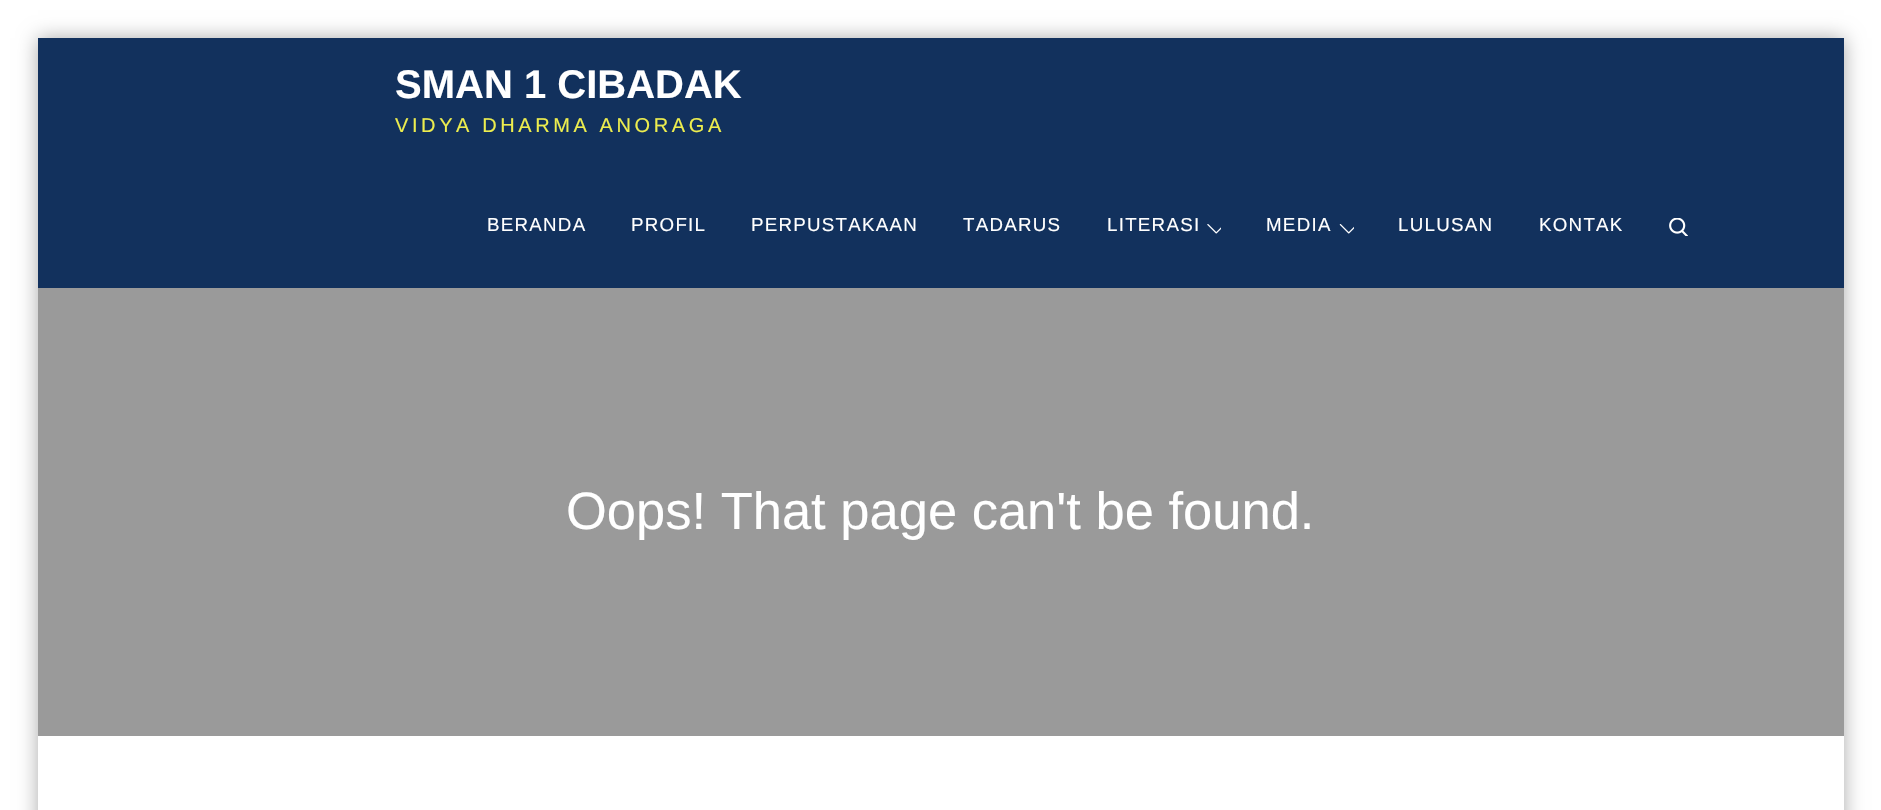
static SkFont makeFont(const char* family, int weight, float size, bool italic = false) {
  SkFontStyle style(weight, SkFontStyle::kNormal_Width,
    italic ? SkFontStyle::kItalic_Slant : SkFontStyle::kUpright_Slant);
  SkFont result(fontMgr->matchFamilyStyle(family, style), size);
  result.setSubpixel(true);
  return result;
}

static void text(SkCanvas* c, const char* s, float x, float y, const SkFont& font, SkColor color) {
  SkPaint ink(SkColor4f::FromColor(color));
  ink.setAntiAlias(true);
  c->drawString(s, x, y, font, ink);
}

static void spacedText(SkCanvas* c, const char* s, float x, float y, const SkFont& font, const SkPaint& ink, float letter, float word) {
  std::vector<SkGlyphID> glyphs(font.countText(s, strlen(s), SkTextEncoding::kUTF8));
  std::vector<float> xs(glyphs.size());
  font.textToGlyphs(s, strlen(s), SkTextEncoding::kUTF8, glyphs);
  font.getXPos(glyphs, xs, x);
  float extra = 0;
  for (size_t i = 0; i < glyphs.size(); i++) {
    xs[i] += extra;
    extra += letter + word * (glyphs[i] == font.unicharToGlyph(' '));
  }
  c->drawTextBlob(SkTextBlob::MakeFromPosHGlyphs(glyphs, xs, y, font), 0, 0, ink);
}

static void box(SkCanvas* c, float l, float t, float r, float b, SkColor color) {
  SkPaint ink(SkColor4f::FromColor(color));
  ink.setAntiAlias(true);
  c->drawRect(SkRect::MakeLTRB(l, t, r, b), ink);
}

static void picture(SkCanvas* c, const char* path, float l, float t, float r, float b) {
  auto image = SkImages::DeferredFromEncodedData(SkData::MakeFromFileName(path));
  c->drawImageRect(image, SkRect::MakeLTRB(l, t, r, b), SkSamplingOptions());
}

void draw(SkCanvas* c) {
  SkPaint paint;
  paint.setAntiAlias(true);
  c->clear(0xffffffff);
  paint.setColor(0xffaaaaaa);
  paint.setMaskFilter(SkMaskFilter::MakeBlur(kNormal_SkBlurStyle, 9.5f));
  c->drawRect(SkRect::MakeLTRB(38, 38, 1844, 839), paint);
  paint.setMaskFilter(nullptr);
  box(c, 38, 736, 1844, 810, 0xffffffff);
  box(c, 38, 38, 1844, 288, 0xff12315d);
  SkFont face1 = makeFont("Liberation Sans", 700, 40);
  text(c, "SMAN 1 CIBADAK", 395, 98, face1, 0xffffffff);
  SkFont face2 = makeFont("Liberation Sans", 400, 20);
  paint.setColor(0xffeded4e);
  spacedText(c, "VIDYA DHARMA ANORAGA", 395, 132, face2, paint, 3.6f, 0);
  SkFont face3 = makeFont("Liberation Sans", 400, 18.75f);
  paint.setColor(0xffffffff);
  spacedText(c, "BERANDA", 487, 231, face3, paint, 1.25f, 0);
  spacedText(c, "PROFIL", 631, 231, face3, paint, 1.25f, 0);
  spacedText(c, "PERPUSTAKAAN", 751, 231, face3, paint, 1.25f, 0);
  spacedText(c, "TADARUS", 963, 231, face3, paint, 1.25f, 0);
  spacedText(c, "LITERASI", 1107, 231, face3, paint, 1.25f, 0);
  picture(c, "img_01.png", 1207, 224, 1221, 234);
  spacedText(c, "MEDIA", 1266, 231, face3, paint, 1.25f, 0);
  picture(c, "img_02.png", 1339, 224, 1354, 234);
  spacedText(c, "LULUSAN", 1398, 231, face3, paint, 1.25f, 0);
  spacedText(c, "KONTAK", 1539, 231, face3, paint, 1.25f, 0);
  picture(c, "img_03.png", 1669, 218, 1688, 236);
  box(c, 38, 288, 1844, 736, 0xff9a9a9a);
  SkFont face4 = makeFont("Liberation Sans", 400, 52.5f);
  text(c, "Oops! That page can't be found.", 566, 529, face4, 0xffffffff);
}
